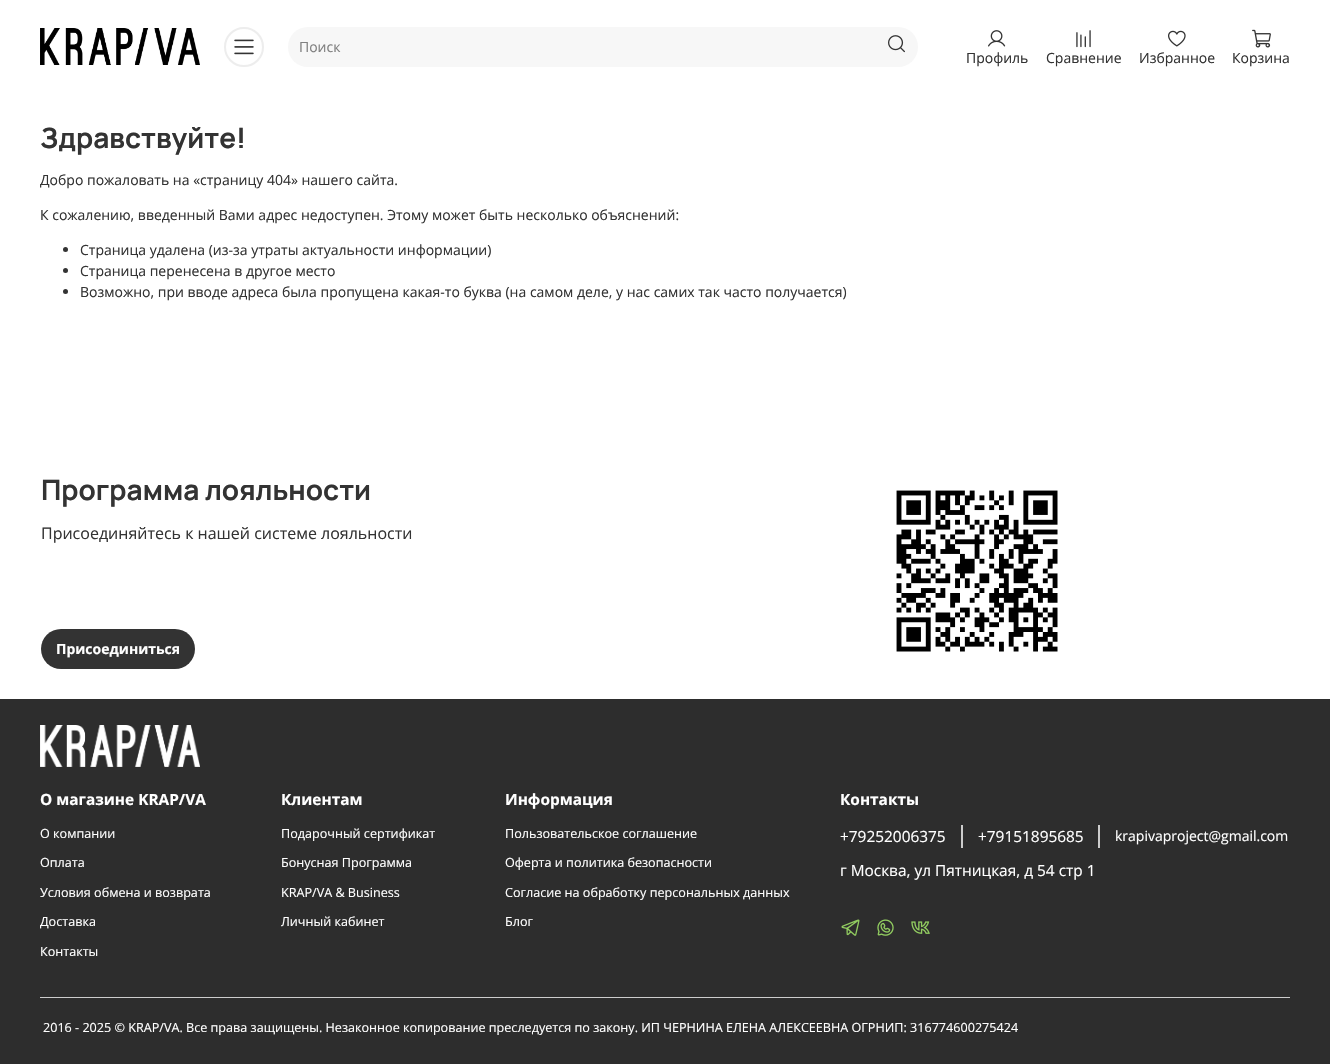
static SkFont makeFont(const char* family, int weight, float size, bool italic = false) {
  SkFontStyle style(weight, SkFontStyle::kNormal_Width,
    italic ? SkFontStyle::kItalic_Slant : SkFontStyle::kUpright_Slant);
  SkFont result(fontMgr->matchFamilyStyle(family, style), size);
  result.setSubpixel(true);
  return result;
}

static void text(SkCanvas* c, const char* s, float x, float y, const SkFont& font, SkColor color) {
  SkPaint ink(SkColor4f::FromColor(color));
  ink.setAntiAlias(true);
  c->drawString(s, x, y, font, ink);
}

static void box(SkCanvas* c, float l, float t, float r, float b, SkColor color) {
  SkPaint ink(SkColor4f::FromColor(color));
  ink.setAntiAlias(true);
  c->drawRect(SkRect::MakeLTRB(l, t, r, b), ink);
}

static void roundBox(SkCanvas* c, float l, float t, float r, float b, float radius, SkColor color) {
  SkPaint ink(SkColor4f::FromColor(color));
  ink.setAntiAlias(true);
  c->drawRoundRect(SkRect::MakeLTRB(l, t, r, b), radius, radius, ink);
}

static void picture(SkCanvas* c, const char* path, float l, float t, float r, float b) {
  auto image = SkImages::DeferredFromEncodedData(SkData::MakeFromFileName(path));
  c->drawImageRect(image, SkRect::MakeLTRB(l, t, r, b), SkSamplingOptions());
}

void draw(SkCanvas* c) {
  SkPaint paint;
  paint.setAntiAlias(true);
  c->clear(0xffffffff);
  picture(c, "img_01.png", 40, 28, 200, 65);
  paint.setStyle(SkPaint::kStroke_Style);
  paint.setStrokeWidth(2);
  paint.setColor(0xffededed);
  c->drawCircle(244, 47, 19, paint);
  picture(c, "img_02.png", 234, 39, 254, 55);
  roundBox(c, 288, 27, 918, 67, 20, 0xfff7f7f7);
  SkFont face1 = makeFont("Open Sans", 400, 14);
  text(c, "Поиск", 299, 52, face1, 0xff808080);
  picture(c, "img_03.png", 888, 35, 905, 53);
  picture(c, "img_04.png", 988, 30, 1006, 47);
  text(c, "Профиль", 966, 63, face1, 0xff333333);
  picture(c, "img_05.png", 1076, 30, 1091, 48);
  text(c, "Сравнение", 1046, 63, face1, 0xff333333);
  picture(c, "img_06.png", 1168, 30, 1186, 47);
  text(c, "Избранное", 1139, 63, face1, 0xff333333);
  picture(c, "img_07.png", 1252, 29, 1271, 48);
  text(c, "Корзина", 1232, 63, face1, 0xff333333);
  SkFont face2 = makeFont("Manrope", 700, 28);
  text(c, "Здравствуйте!", 40, 148, face2, 0xff333333);
  text(c, "Добро пожаловать на «страницу 404» нашего сайта.", 40, 185, face1, 0xff333333);
  text(c, "К сожалению, введенный Вами адрес недоступен. Этому может быть несколько объяснений:", 40, 220, face1, 0xff333333);
  paint.setStyle(SkPaint::kFill_Style);
  paint.setColor(0xff333333);
  c->drawCircle(65.5f, 249.5f, 2.5f, paint);
  text(c, "Страница удалена (из-за утраты актуальности информации)", 80, 255, face1, 0xff333333);
  c->drawCircle(65.5f, 270.5f, 2.5f, paint);
  text(c, "Страница перенесена в другое место", 80, 276, face1, 0xff333333);
  c->drawCircle(65.5f, 291.5f, 2.5f, paint);
  text(c, "Возможно, при вводе адреса была пропущена какая-то буква (на самом деле, у нас самих так часто получается)", 80, 297, face1, 0xff333333);
  text(c, "Программа лояльности", 41, 500, face2, 0xff333333);
  SkFont face3 = makeFont("Open Sans", 400, 16);
  text(c, "Присоединяйтесь к нашей системе лояльности", 41, 539, face3, 0xff333333);
  roundBox(c, 41, 629, 195, 669, 20, 0xff333333);
  SkFont face4 = makeFont("Open Sans", 700, 14);
  text(c, "Присоединиться", 56, 654, face4, 0xffffffff);
  picture(c, "img_08.png", 896, 490, 1058, 652);
  box(c, 0, 699, 1330, 1064, 0xff2d2d2d);
  picture(c, "img_09.png", 40, 725, 200, 767);
  SkFont face5 = makeFont("Open Sans", 700, 15.4f);
  text(c, "О магазине KRAP/VA", 40, 805, face5, 0xffffffff);
  SkFont face6 = makeFont("Open Sans", 400, 12.6f);
  text(c, "О компании", 40, 838, face6, 0xffffffff);
  text(c, "Оплата", 40, 867, face6, 0xffffffff);
  text(c, "Условия обмена и возврата", 40, 897, face6, 0xffffffff);
  text(c, "Доставка", 40, 926, face6, 0xffffffff);
  text(c, "Контакты", 40, 956, face6, 0xffffffff);
  text(c, "Клиентам", 281, 805, face5, 0xffffffff);
  text(c, "Подарочный сертификат", 281, 838, face6, 0xffffffff);
  text(c, "Бонусная Программа", 281, 867, face6, 0xffffffff);
  text(c, "KRAP/VA & Business", 281, 897, face6, 0xffffffff);
  text(c, "Личный кабинет", 281, 926, face6, 0xffffffff);
  text(c, "Информация", 505, 805, face5, 0xffffffff);
  text(c, "Пользовательское соглашение", 505, 838, face6, 0xffffffff);
  text(c, "Оферта и политика безопасности", 505, 867, face6, 0xffffffff);
  text(c, "Согласие на обработку персональных данных", 505, 897, face6, 0xffffffff);
  text(c, "Блог", 505, 926, face6, 0xffffffff);
  text(c, "Контакты", 840, 805, face5, 0xffffffff);
  box(c, 961, 825, 963, 848, 0xffcccccc);
  SkFont face7 = makeFont("Open Sans", 400, 15.4f);
  text(c, "+79252006375", 840, 842, face7, 0xffffffff);
  box(c, 1098, 825, 1100, 848, 0xffcccccc);
  text(c, "+79151895685", 978, 842, face7, 0xffffffff);
  text(c, "krapivaproject@gmail.com", 1115, 841, face1, 0xffffffff);
  text(c, "г Москва, ул Пятницкая, д 54 стр 1", 840, 876, face7, 0xffffffff);
  picture(c, "img_10.png", 841, 919, 860, 936);
  picture(c, "img_11.png", 877, 919, 894, 936);
  picture(c, "img_12.png", 911, 921, 930, 934);
  box(c, 40, 997, 1290, 998, 0xffcccccc);
  text(c, "2016 - 2025 © KRAP/VA. Все права защищены. Незаконное копирование преследуется по закону. ИП ЧЕРНИНА ЕЛЕНА АЛЕКСЕЕВНА ОГРНИП: 316774600275424", 43, 1032, face6, 0xffffffff);
}
